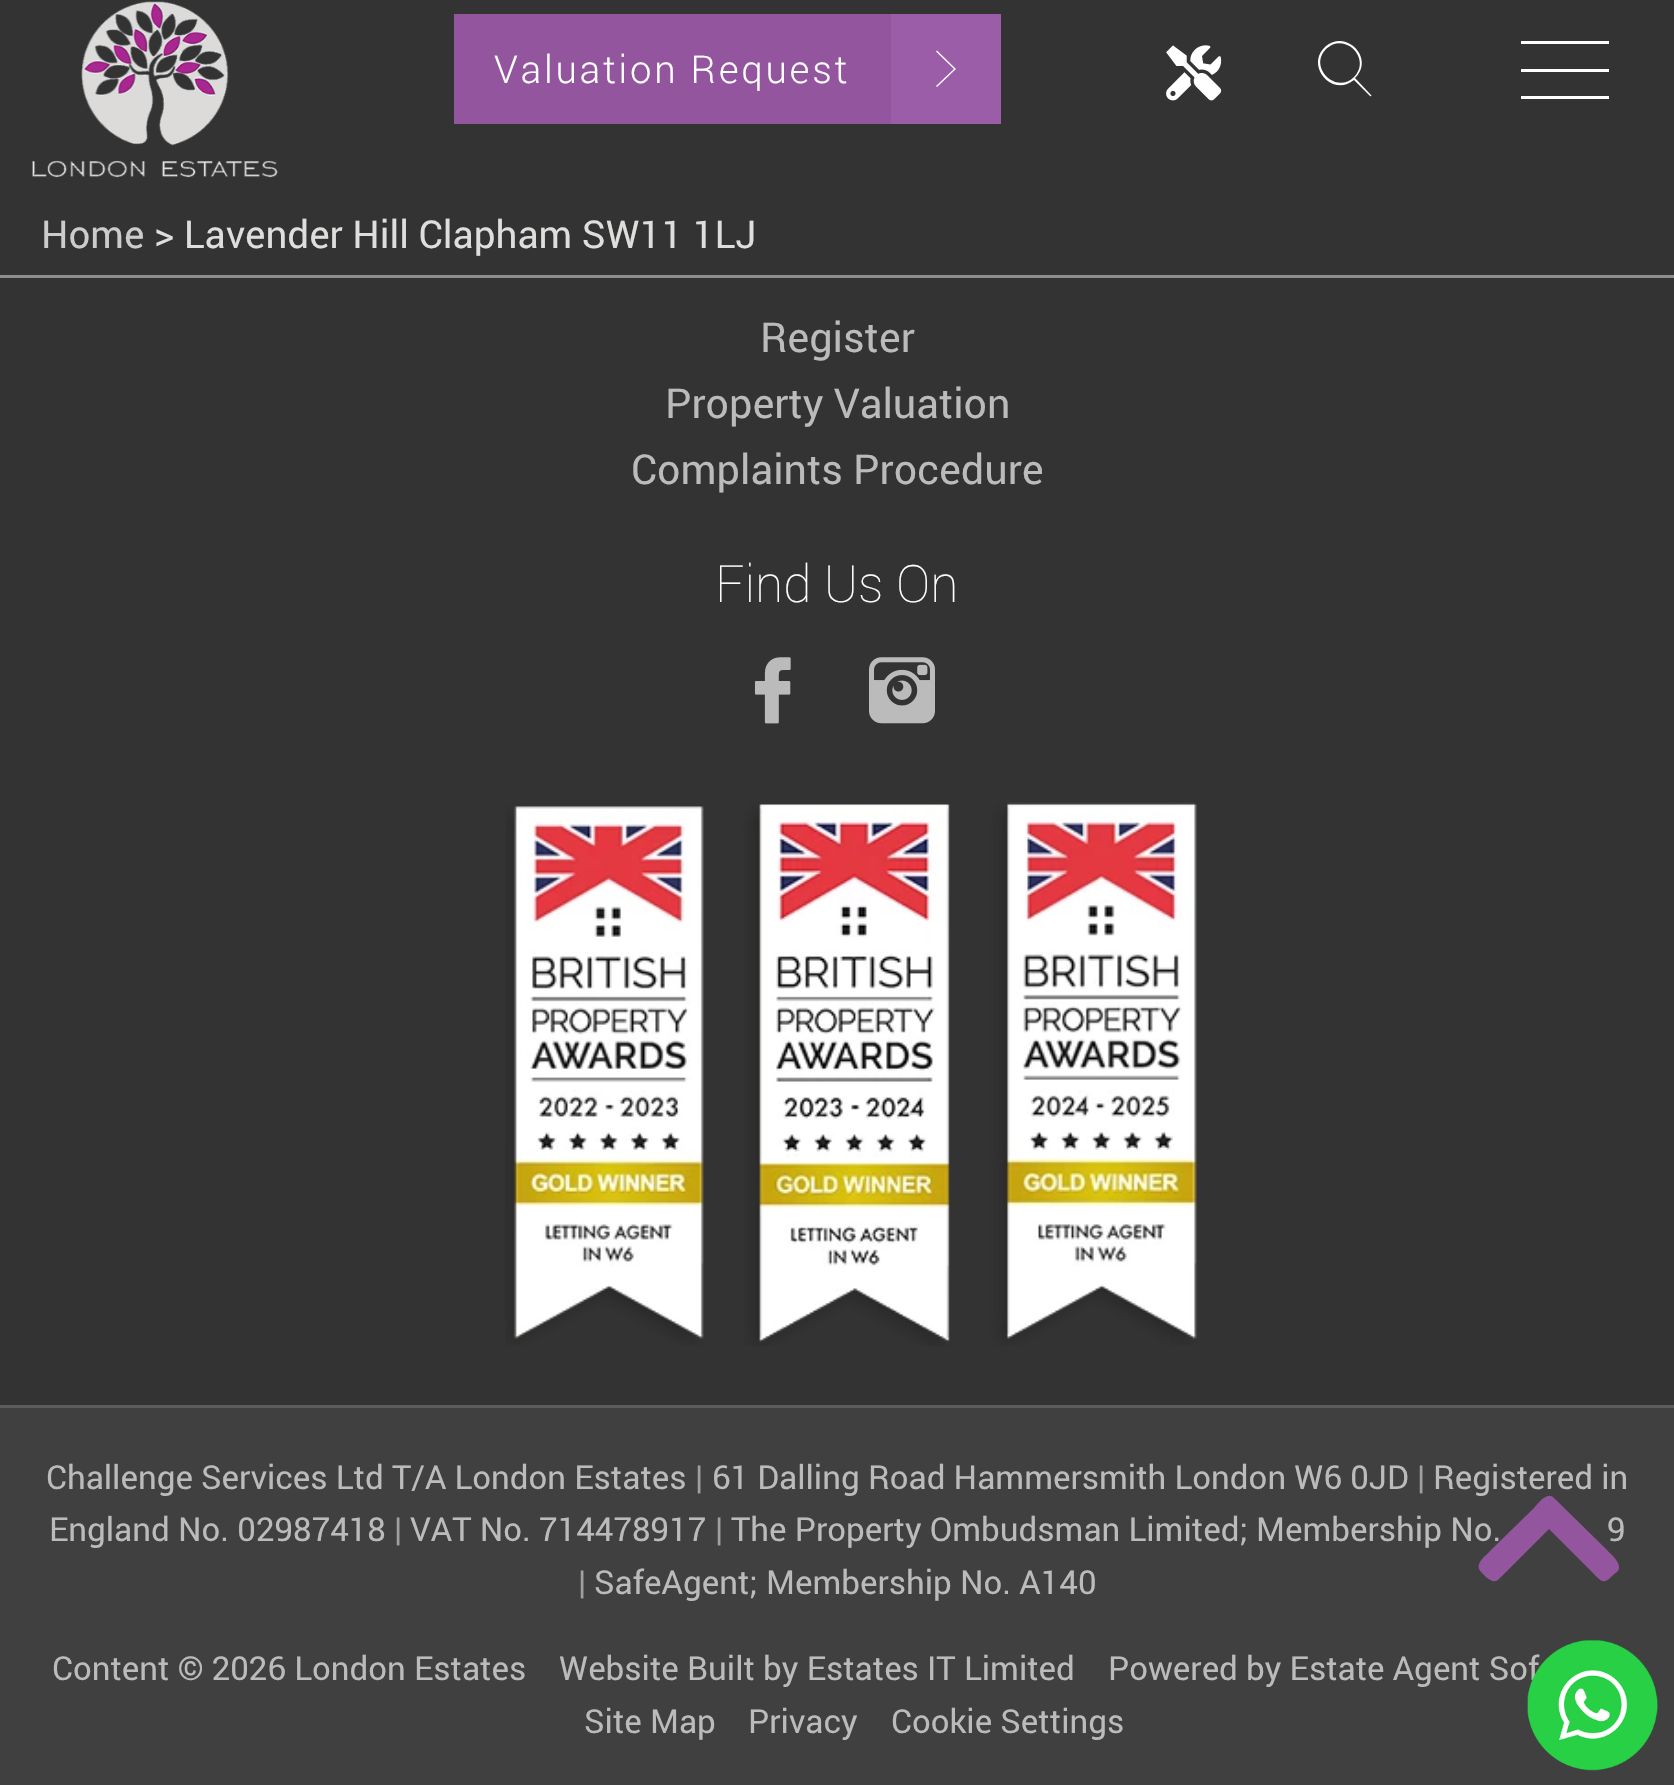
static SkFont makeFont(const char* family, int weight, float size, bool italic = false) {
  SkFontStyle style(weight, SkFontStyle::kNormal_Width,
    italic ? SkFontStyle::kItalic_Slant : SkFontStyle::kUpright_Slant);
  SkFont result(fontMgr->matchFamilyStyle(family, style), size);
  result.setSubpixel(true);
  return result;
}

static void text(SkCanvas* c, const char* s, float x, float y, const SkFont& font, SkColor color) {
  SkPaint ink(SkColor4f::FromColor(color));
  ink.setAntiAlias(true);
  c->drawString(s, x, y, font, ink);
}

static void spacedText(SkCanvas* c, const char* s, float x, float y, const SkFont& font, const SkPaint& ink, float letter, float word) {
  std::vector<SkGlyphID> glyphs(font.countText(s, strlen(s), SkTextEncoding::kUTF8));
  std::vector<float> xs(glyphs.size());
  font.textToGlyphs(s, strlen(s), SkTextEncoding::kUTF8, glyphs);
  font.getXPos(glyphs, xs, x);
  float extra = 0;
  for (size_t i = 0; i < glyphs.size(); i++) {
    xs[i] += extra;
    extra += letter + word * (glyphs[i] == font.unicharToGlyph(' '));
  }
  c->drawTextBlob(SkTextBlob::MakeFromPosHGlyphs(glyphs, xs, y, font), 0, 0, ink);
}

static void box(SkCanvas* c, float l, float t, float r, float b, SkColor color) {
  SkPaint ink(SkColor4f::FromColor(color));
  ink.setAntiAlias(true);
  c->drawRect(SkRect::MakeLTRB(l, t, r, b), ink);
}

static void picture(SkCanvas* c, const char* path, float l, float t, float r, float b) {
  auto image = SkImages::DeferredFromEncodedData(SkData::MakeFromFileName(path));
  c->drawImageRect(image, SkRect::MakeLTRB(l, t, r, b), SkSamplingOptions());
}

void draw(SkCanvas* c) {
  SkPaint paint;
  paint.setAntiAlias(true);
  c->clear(0xff333333);
  box(c, 0, 275, 1674, 278, 0x73ffffff);
  picture(c, "img_01.png", 32, 1, 278, 178);
  box(c, 454, 14, 891, 124, 0xff93569e);
  SkFont face1 = makeFont("Roboto", 300, 38.5f);
  paint.setColor(0xffffffff);
  spacedText(c, "Valuation Request", 494, 83, face1, paint, 2.75f, 0);
  box(c, 891, 14, 1001, 124, 0xff9b5da7);
  c->drawPath(SkPathBuilder().moveTo(937, 50.5f).lineTo(956, 69).lineTo(937, 87).lineTo(936, 86).lineTo(954, 69).lineTo(936, 51.5f).close().detach(), paint);
  picture(c, "img_02.png", 1166, 45, 1222, 101);
  c->drawPath(SkPathBuilder().moveTo(1371, 95).lineTo(1355, 78).cubicTo(1375, 59, 1347, 29, 1326, 46).cubicTo(1304, 65, 1332, 98, 1354, 80).lineTo(1370, 96).cubicTo(1371, 97, 1372, 95, 1371, 95).close().moveTo(1354, 77).cubicTo(1336, 95, 1308, 67, 1326, 49).cubicTo(1345, 31, 1372, 59, 1354, 77).close().detach(), paint);
  box(c, 1521, 41, 1609, 44, 0xffffffff);
  box(c, 1521, 69, 1609, 72, 0xffffffff);
  box(c, 1521, 96, 1609, 99, 0xffffffff);
  SkFont face2 = makeFont("Roboto", 400, 38.5f);
  text(c, "Home", 41, 248, face2, 0xffcccccc);
  text(c, "> Lavender Hill Clapham SW11 1LJ", 154, 248, face2, 0xffdededd);
  SkFont face3 = makeFont("Roboto", 400, 41.25f);
  text(c, "Register", 760, 352, face3, 0xffbbbbbb);
  text(c, "Property Valuation", 665, 418, face3, 0xffbbbbbb);
  text(c, "Complaints Procedure", 631, 484, face3, 0xffbbbbbb);
  SkFont face4 = makeFont("Roboto", 100, 51.5f);
  text(c, "Find Us On", 715, 602, face4, 0xffffffff);
  picture(c, "img_03.png", 754, 657, 791, 724);
  picture(c, "img_04.png", 869, 657, 935, 724);
  picture(c, "img_05.png", 505, 802, 1197, 1346);
  box(c, 0, 1408, 1674, 1785, 0xff404040);
  box(c, 0, 1405, 1674, 1408, 0xff5d5d5d);
  SkFont face5 = makeFont("Roboto", 400, 33);
  text(c, "Challenge Services Ltd T/A London Estates", 46, 1489, face5, 0xffbbbbbb);
  text(c, "|", 695, 1489, face5, 0xffa0a0a0);
  text(c, "61 Dalling Road Hammersmith London W6 0JD", 712, 1489, face5, 0xffbbbbbb);
  text(c, "|", 1417, 1489, face5, 0xffa0a0a0);
  text(c, "Registered in", 1433, 1489, face5, 0xffbbbbbb);
  text(c, "England No. 02987418", 49, 1541, face5, 0xffbbbbbb);
  text(c, "|", 394, 1541, face5, 0xffa0a0a0);
  text(c, "VAT No. 714478917", 410, 1541, face5, 0xffbbbbbb);
  text(c, "|", 715, 1541, face5, 0xffa0a0a0);
  text(c, "The Property Ombudsman Limited; Membership No.", 731, 1541, face5, 0xffbbbbbb);
  text(c, "9", 1607, 1541, face5, 0xffbbbbbb);
  text(c, "|", 578, 1594, face5, 0xffa0a0a0);
  text(c, "SafeAgent; Membership No. A140", 594, 1594, face5, 0xffbbbbbb);
  text(c, "Content © 2026 London Estates", 52, 1680, face5, 0xffbbbbbb);
  text(c, "Website Built by Estates IT Limited", 559, 1680, face5, 0xffbbbbbb);
  text(c, "Powered by Estate Agent Sof", 1108, 1680, face5, 0xffbbbbbb);
  text(c, "Site Map", 584, 1733, face5, 0xffbbbbbb);
  text(c, "Privacy", 748, 1733, face5, 0xffbbbbbb);
  text(c, "Cookie Settings", 891, 1733, face5, 0xffbbbbbb);
  paint.setColor(0xff93569e);
  c->drawPath(SkPathBuilder().moveTo(1554, 1498).lineTo(1607, 1550).cubicTo(1610, 1554, 1623, 1563, 1618, 1571).lineTo(1613, 1575).cubicTo(1603, 1586, 1601, 1581, 1591, 1571).lineTo(1549, 1529).lineTo(1499, 1579).cubicTo(1493, 1585, 1486, 1577, 1482, 1573).cubicTo(1473, 1564, 1485, 1557, 1491, 1550).lineTo(1533, 1509).cubicTo(1537, 1505, 1547, 1490, 1554, 1498).close().detach(), paint);
  picture(c, "img_06.png", 1527, 1640, 1658, 1771);
}
